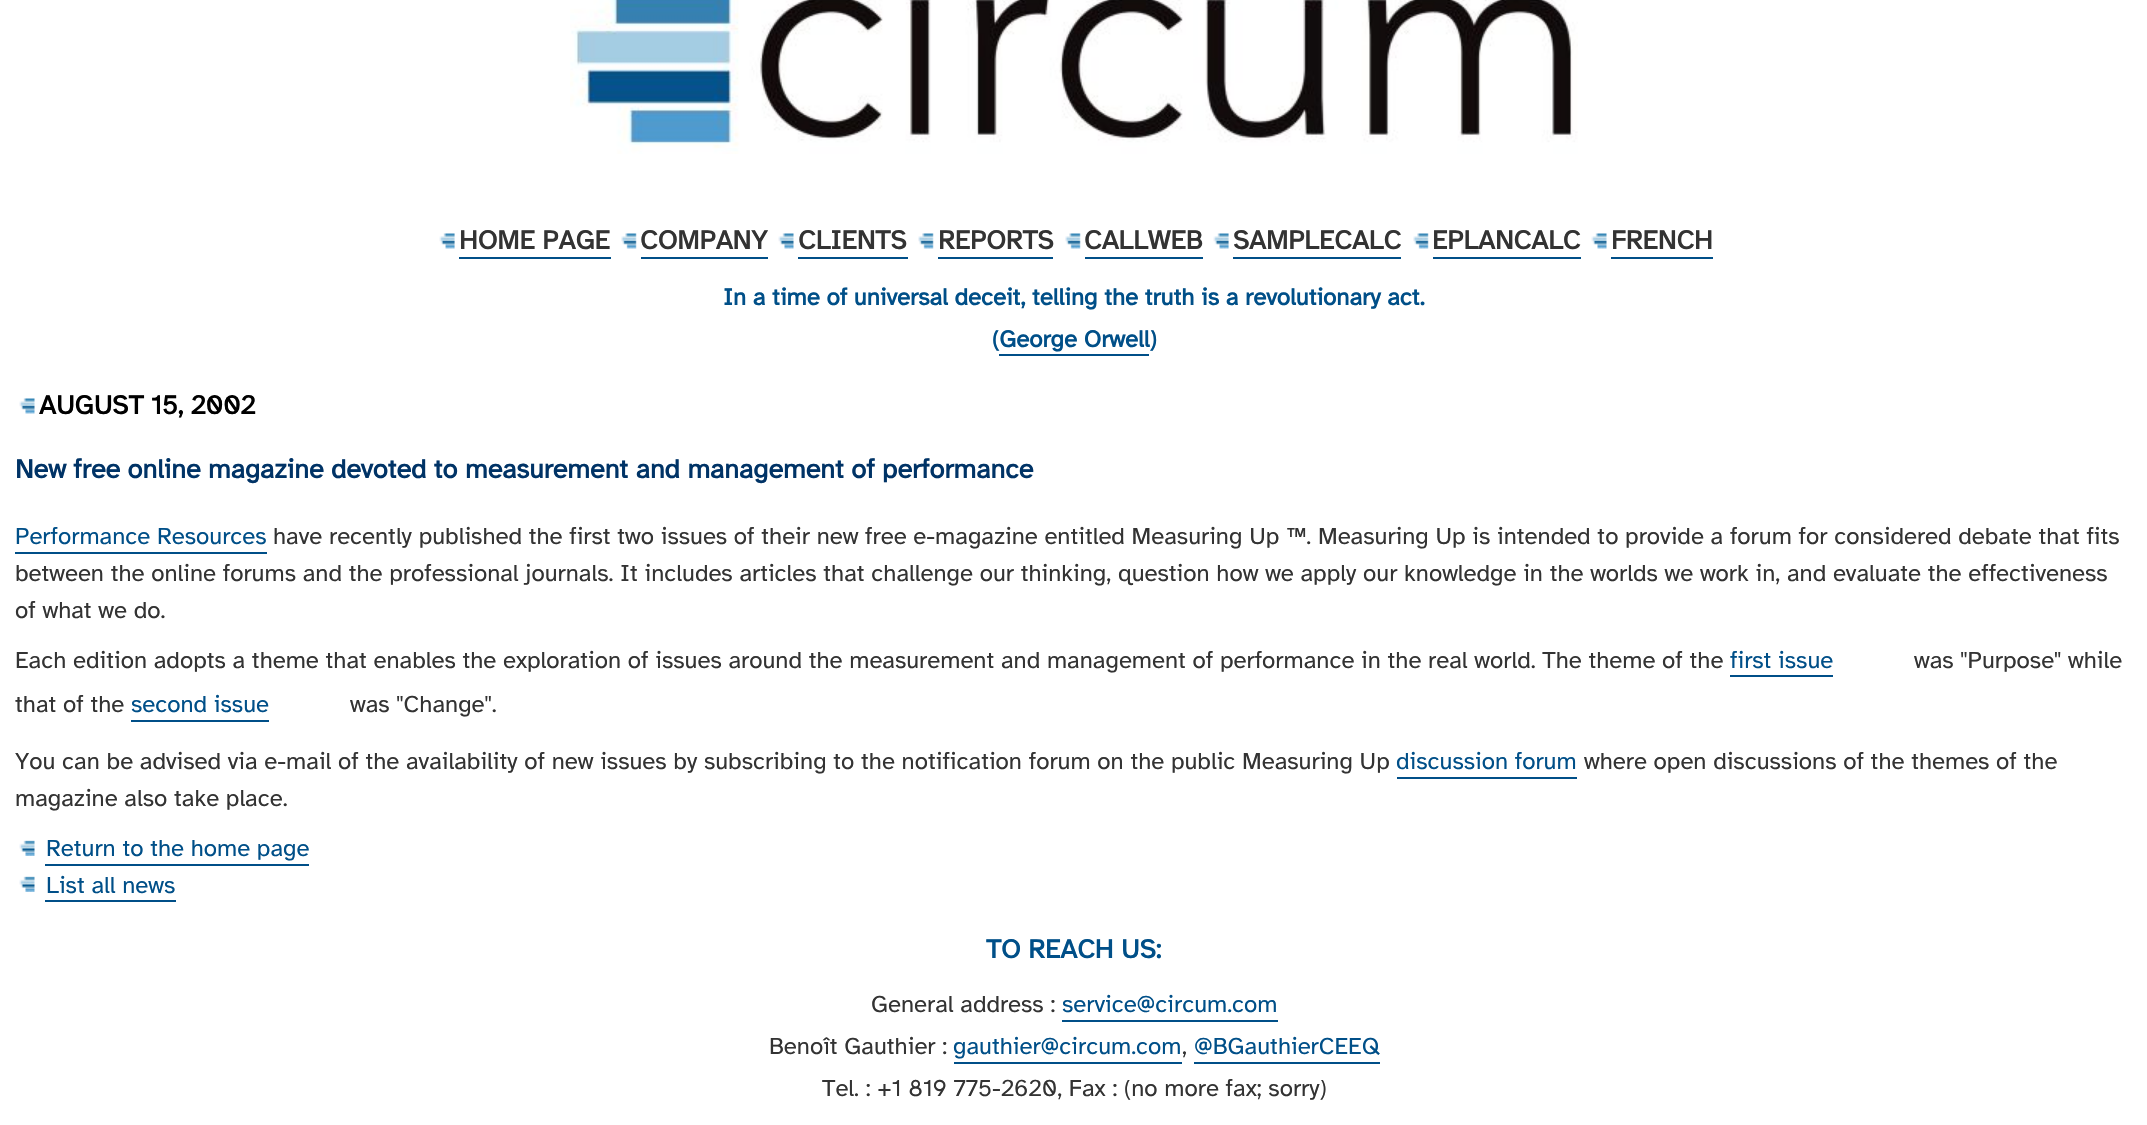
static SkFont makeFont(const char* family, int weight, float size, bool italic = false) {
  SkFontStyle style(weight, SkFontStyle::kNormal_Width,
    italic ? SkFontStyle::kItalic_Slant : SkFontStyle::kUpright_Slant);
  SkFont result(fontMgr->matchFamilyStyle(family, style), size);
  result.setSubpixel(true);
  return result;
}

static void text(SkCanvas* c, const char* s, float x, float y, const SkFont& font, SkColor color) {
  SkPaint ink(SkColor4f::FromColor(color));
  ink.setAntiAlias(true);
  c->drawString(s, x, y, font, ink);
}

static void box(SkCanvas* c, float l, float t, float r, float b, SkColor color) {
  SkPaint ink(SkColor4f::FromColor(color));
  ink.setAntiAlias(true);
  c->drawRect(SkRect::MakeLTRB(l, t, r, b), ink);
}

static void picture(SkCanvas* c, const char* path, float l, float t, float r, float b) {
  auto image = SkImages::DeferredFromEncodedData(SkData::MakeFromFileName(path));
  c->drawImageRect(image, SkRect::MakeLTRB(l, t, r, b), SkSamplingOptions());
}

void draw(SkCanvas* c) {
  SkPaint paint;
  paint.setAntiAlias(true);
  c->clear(0xffffffff);
  picture(c, "img_01.png", 570, 0, 1578, 154);
  picture(c, "img_02.png", 439, 233, 455, 249);
  SkFont face1 = makeFont("Atkinson Hyperlegible", 700, 27);
  text(c, "HOME PAGE", 459, 249, face1, 0xff333333);
  box(c, 459, 257, 611, 259, 0xff004f88);
  picture(c, "img_03.png", 621, 233, 637, 249);
  text(c, "COMPANY", 640, 249, face1, 0xff333333);
  box(c, 641, 257, 768, 259, 0xff004f88);
  picture(c, "img_04.png", 778, 233, 794, 249);
  text(c, "CLIENTS", 798, 249, face1, 0xff333333);
  box(c, 798, 257, 908, 259, 0xff004f88);
  picture(c, "img_05.png", 918, 233, 934, 249);
  text(c, "REPORTS", 938, 249, face1, 0xff333333);
  box(c, 938, 257, 1053, 259, 0xff004f88);
  picture(c, "img_03.png", 1065, 233, 1081, 249);
  text(c, "CALLWEB", 1084, 249, face1, 0xff333333);
  box(c, 1085, 257, 1203, 259, 0xff004f88);
  picture(c, "img_02.png", 1213, 233, 1229, 249);
  text(c, "SAMPLECALC", 1233, 249, face1, 0xff333333);
  box(c, 1233, 257, 1401, 259, 0xff004f88);
  picture(c, "img_03.png", 1413, 233, 1429, 249);
  text(c, "EPLANCALC", 1432, 249, face1, 0xff333333);
  box(c, 1433, 257, 1581, 259, 0xff004f88);
  picture(c, "img_04.png", 1591, 233, 1607, 249);
  text(c, "FRENCH", 1611, 249, face1, 0xff333333);
  box(c, 1611, 257, 1713, 259, 0xff004f88);
  SkFont face2 = makeFont("Atkinson Hyperlegible", 700, 24);
  text(c, "In a time of universal deceit, telling the truth is a revolutionary act.", 723, 305, face2, 0xff004f88);
  text(c, "(George Orwell)", 992, 347, face2, 0xff004f88);
  box(c, 999, 354, 1149, 356, 0xff004f88);
  picture(c, "img_04.png", 19, 398, 35, 414);
  text(c, "AUGUST 15, 2002", 39, 414, face1, 0xff000000);
  text(c, "New free online magazine devoted to measurement and management of performance", 15, 478, face1, 0xff003366);
  SkFont face3 = makeFont("Atkinson Hyperlegible", 400, 24);
  text(c, "Performance Resources", 15, 544, face3, 0xff004f88);
  box(c, 15, 552, 267, 554, 0xff004f88);
  text(c, "have recently published the first two issues of their new free e-magazine entitled Measuring Up ™. Measuring Up is intended to provide a forum for considered debate that fits", 273, 544, face3, 0xff333333);
  text(c, "between the online forums and the professional journals. It includes articles that challenge our thinking, question how we apply our knowledge in the worlds we work in, and evaluate the effectiveness", 15, 581, face3, 0xff333333);
  text(c, "of what we do.", 15, 618, face3, 0xff333333);
  text(c, "Each edition adopts a theme that enables the exploration of issues around the measurement and management of performance in the real world. The theme of the", 15, 668, face3, 0xff333333);
  text(c, "first issue", 1730, 668, face3, 0xff004f88);
  box(c, 1730, 675, 1833, 677, 0xff004f88);
  text(c, "was \"Purpose\" while", 1914, 668, face3, 0xff333333);
  text(c, "that of the", 15, 712, face3, 0xff333333);
  text(c, "second issue", 131, 712, face3, 0xff004f88);
  box(c, 131, 720, 269, 722, 0xff004f88);
  text(c, "was \"Change\".", 350, 712, face3, 0xff333333);
  text(c, "You can be advised via e-mail of the availability of new issues by subscribing to the notification forum on the public Measuring Up", 15, 769, face3, 0xff333333);
  text(c, "discussion forum", 1396, 769, face3, 0xff004f88);
  box(c, 1397, 777, 1577, 779, 0xff004f88);
  text(c, "where open discussions of the themes of the", 1584, 769, face3, 0xff333333);
  text(c, "magazine also take place.", 15, 806, face3, 0xff333333);
  picture(c, "img_06.png", 19, 840, 35, 856);
  text(c, "Return to the home page", 46, 856, face3, 0xff004f88);
  box(c, 45, 864, 309, 866, 0xff004f88);
  picture(c, "img_06.png", 19, 876, 35, 892);
  text(c, "List all news", 46, 893, face3, 0xff004f88);
  box(c, 45, 900, 176, 902, 0xff004f88);
  text(c, "TO REACH US:", 986, 958, face1, 0xff004f88);
  text(c, "General address :", 871, 1012, face3, 0xff333333);
  text(c, "service@circum.com", 1062, 1012, face3, 0xff004f88);
  box(c, 1062, 1020, 1278, 1022, 0xff004f88);
  text(c, "Benoît Gauthier :", 769, 1054, face3, 0xff333333);
  text(c, "gauthier@circum.com", 953, 1054, face3, 0xff004f88);
  box(c, 954, 1062, 1182, 1064, 0xff004f88);
  text(c, ",", 1182, 1054, face3, 0xff333333);
  text(c, "@BGauthierCEEQ", 1194, 1054, face3, 0xff004f88);
  box(c, 1194, 1062, 1380, 1064, 0xff004f88);
  text(c, "Tel. : +1 819 775-2620, Fax : (no more fax; sorry)", 822, 1096, face3, 0xff333333);
}
